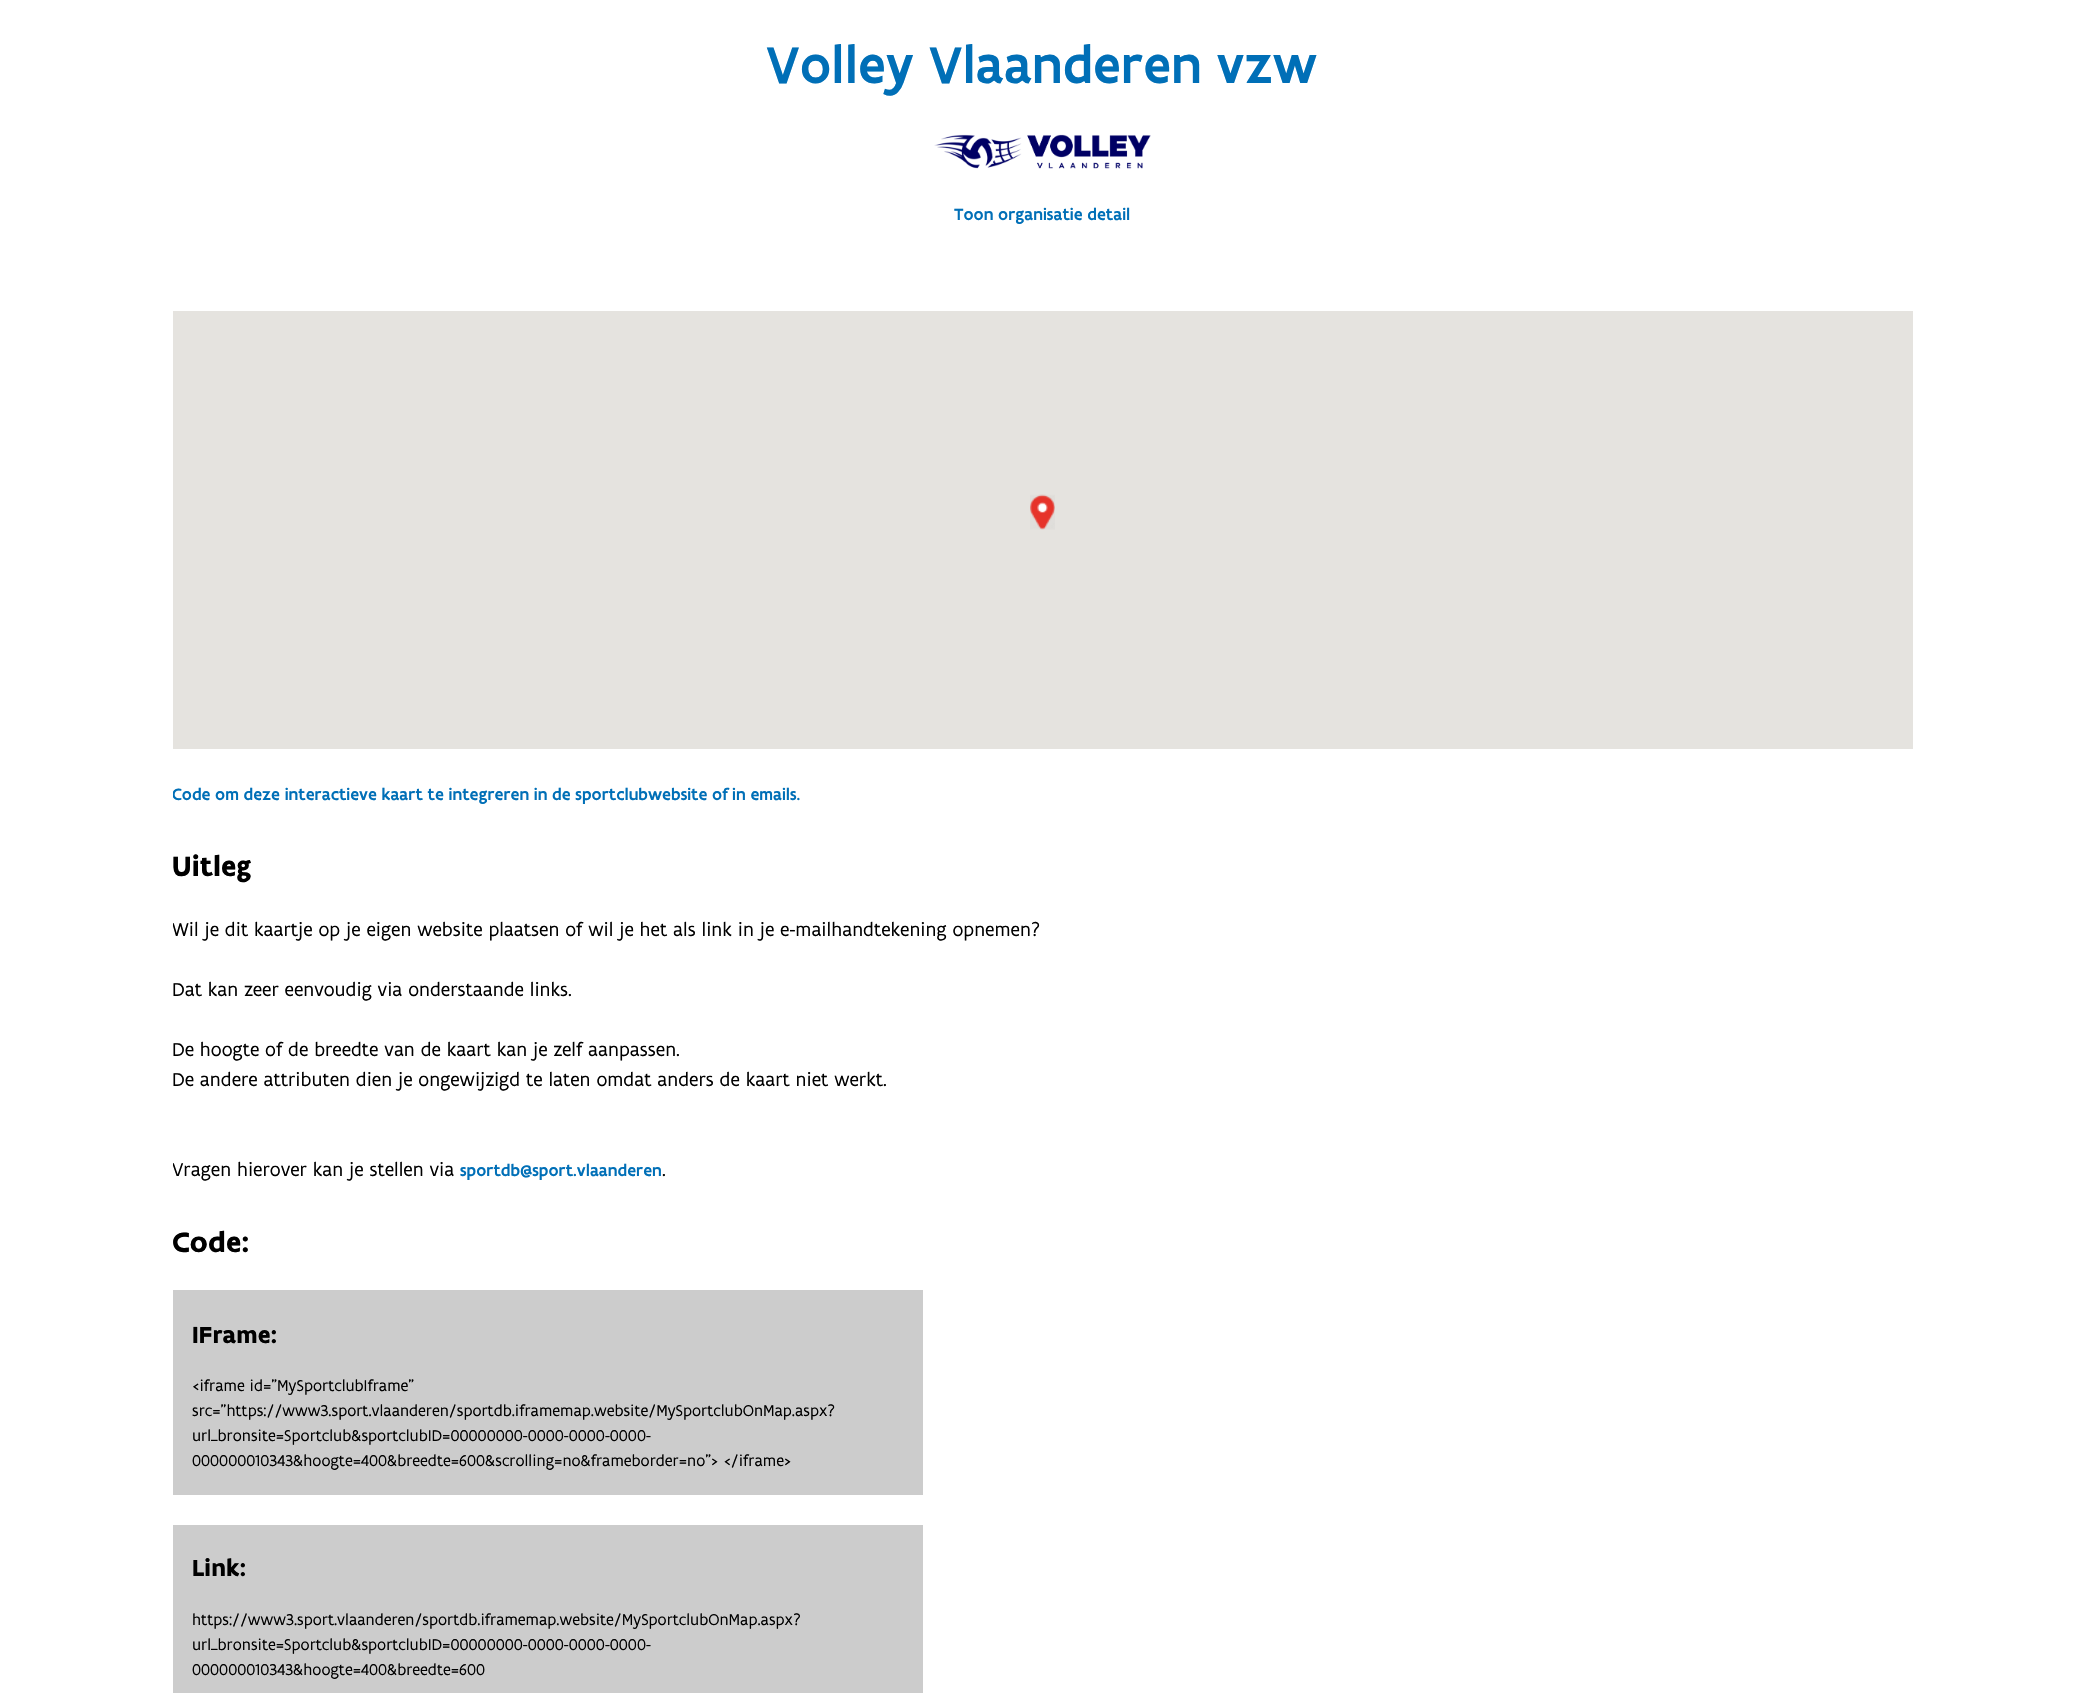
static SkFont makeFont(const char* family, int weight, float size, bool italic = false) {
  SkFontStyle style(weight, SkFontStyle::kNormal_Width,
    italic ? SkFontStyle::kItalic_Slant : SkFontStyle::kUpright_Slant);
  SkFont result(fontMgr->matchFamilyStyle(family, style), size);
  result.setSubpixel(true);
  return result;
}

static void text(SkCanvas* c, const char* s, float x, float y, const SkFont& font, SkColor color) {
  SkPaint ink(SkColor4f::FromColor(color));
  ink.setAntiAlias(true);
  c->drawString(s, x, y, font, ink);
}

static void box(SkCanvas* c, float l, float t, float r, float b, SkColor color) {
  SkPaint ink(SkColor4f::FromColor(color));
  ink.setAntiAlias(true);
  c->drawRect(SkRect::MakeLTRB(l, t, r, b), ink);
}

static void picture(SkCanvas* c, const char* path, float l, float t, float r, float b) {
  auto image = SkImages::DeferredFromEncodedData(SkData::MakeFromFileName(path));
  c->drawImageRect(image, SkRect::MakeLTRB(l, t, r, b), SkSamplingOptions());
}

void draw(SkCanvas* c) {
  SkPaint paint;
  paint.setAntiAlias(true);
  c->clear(0xffffffff);
  SkFont face1 = makeFont("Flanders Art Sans", 500, 55);
  text(c, "Volley Vlaanderen vzw", 766, 83, face1, 0xff006fb7);
  picture(c, "img_01.png", 934, 134, 1151, 169);
  SkFont face2 = makeFont("Flanders Art Sans", 500, 17.5f);
  text(c, "Toon organisatie detail", 954, 220, face2, 0xff006fb7);
  box(c, 173, 311, 1913, 749, 0xffe5e3df);
  picture(c, "img_02.png", 1030, 494, 1055, 530);
  c->save();
  c->clipRect(SkRect::MakeLTRB(173, 749, 1913, 820));
  text(c, "Code om deze interactieve kaart te integreren in de sportclubwebsite of in emails.", 172, 800, face2, 0xff006fb7);
  c->restore();
  SkFont face3 = makeFont("Flanders Art Sans", 700, 30);
  text(c, "Uitleg", 172, 876, face3, 0xff000000);
  c->save();
  c->clipRect(SkRect::MakeLTRB(173, 820, 1913, 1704));
  SkFont face4 = makeFont("Flanders Art Sans", 400, 20);
  text(c, "Wil je dit kaartje op je eigen website plaatsen of wil je het als link in je e-mailhandtekening opnemen?", 172, 936, face4, 0xff000000);
  c->restore();
  text(c, "Dat kan zeer eenvoudig via onderstaande links.", 172, 996, face4, 0xff000000);
  text(c, "De hoogte of de breedte van de kaart kan je zelf aanpassen.", 172, 1056, face4, 0xff000000);
  text(c, "De andere attributen dien je ongewijzigd te laten omdat anders de kaart niet werkt.", 172, 1086, face4, 0xff000000);
  c->save();
  c->clipRect(SkRect::MakeLTRB(173, 820, 1913, 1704));
  text(c, "Vragen hierover kan je stellen via", 172, 1176, face4, 0xff000000);
  c->restore();
  text(c, "sportdb@sport.vlaanderen", 460, 1176, face2, 0xff006fb7);
  text(c, ".", 662, 1176, face4, 0xff000000);
  text(c, "Code:", 172, 1252, face3, 0xff000000);
  box(c, 173, 1290, 923, 1495, 0xffcccccc);
  SkFont face5 = makeFont("Flanders Art Sans", 700, 25);
  text(c, "IFrame:", 192, 1343, face5, 0xff000000);
  SkFont face6 = makeFont("Flanders Art Sans", 400, 16.65f);
  text(c, "<iframe id=\"MySportclubIframe\"", 192, 1391, face6, 0xff000000);
  text(c, "src=\"https://www3.sport.vlaanderen/sportdb.iframemap.website/MySportclubOnMap.aspx?", 192, 1416, face6, 0xff000000);
  text(c, "url_bronsite=Sportclub&sportclubID=00000000-0000-0000-0000-", 192, 1441, face6, 0xff000000);
  text(c, "000000010343&hoogte=400&breedte=600&scrolling=no&frameborder=no\"> </iframe>", 192, 1466, face6, 0xff000000);
  box(c, 173, 1525, 923, 1693, 0xffcccccc);
  text(c, "Link:", 192, 1576, face5, 0xff000000);
  text(c, "https://www3.sport.vlaanderen/sportdb.iframemap.website/MySportclubOnMap.aspx?", 192, 1625, face6, 0xff000000);
  text(c, "url_bronsite=Sportclub&sportclubID=00000000-0000-0000-0000-", 192, 1650, face6, 0xff000000);
  text(c, "000000010343&hoogte=400&breedte=600", 192, 1675, face6, 0xff000000);
}
